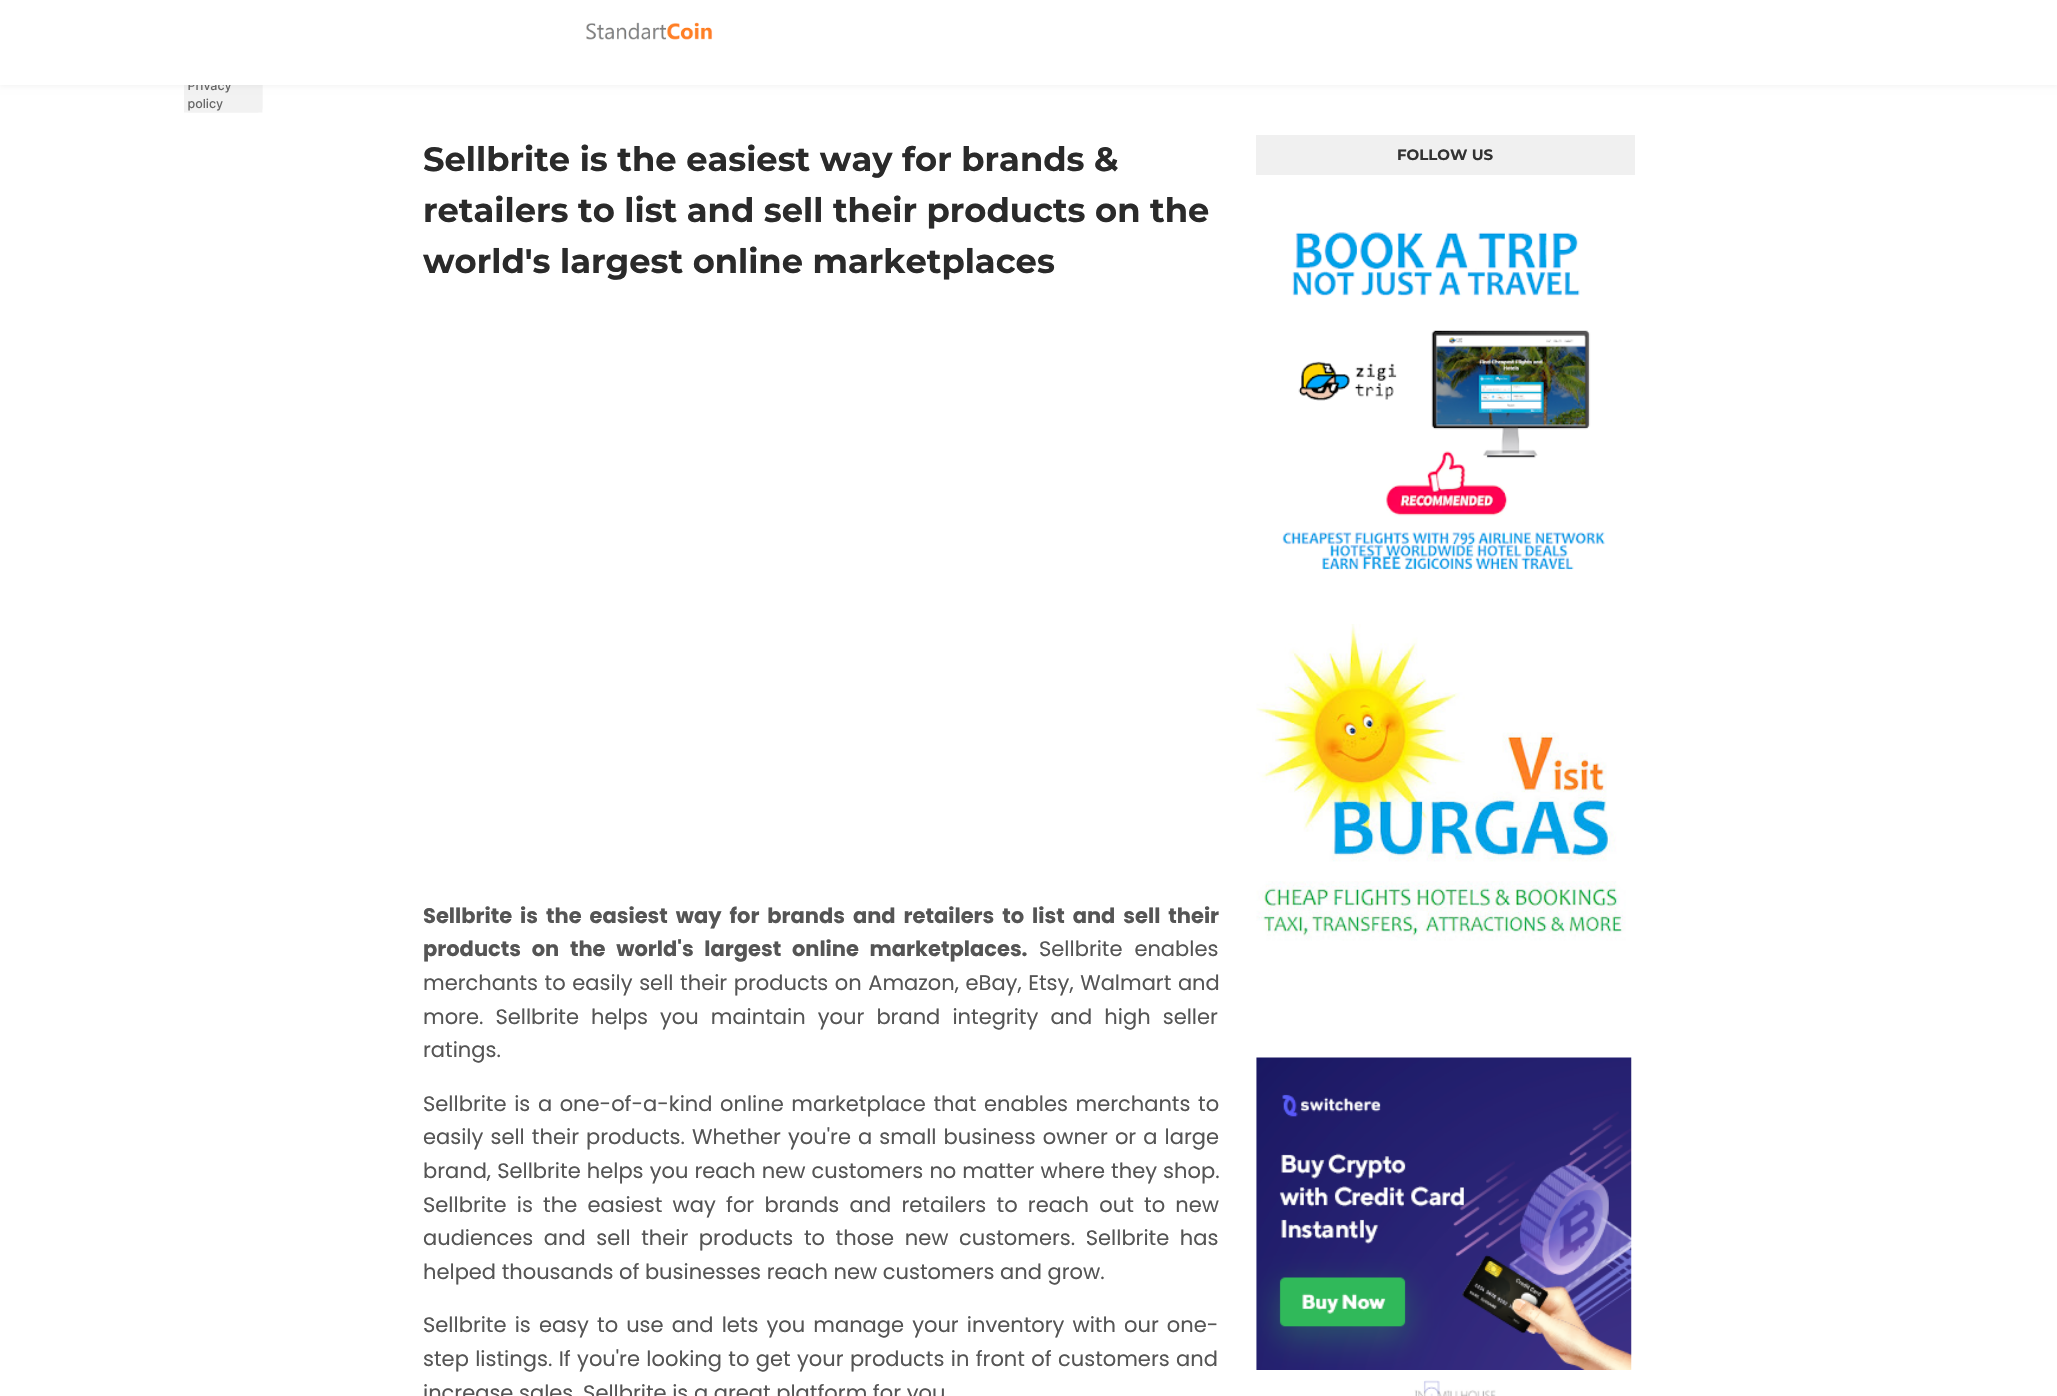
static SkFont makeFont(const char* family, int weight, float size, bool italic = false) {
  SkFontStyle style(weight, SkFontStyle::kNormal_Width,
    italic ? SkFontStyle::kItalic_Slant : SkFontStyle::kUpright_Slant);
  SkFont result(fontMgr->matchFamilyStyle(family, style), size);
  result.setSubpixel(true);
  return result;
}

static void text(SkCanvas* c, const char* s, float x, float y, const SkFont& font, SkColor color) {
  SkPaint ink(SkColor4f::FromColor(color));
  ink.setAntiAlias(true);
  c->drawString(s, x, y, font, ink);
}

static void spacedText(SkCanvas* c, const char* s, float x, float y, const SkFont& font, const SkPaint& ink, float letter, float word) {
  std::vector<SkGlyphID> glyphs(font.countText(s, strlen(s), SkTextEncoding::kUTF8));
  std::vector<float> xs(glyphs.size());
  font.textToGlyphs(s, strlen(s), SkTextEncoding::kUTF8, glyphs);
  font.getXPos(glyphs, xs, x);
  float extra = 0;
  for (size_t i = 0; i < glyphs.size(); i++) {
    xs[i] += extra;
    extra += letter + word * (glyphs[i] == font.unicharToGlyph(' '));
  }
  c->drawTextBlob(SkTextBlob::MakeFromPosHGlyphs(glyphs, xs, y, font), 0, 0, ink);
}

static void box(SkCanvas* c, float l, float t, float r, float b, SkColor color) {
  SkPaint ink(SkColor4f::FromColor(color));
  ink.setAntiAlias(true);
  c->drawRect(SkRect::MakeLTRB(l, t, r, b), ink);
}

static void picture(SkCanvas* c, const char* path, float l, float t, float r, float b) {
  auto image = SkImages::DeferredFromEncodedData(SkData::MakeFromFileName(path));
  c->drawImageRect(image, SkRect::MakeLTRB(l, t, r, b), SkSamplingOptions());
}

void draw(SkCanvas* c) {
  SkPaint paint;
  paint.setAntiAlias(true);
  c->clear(0xffffffff);
  picture(c, "img_02.png", 184, 85, 263, 113);
  paint.setColor(0x0d000000);
  paint.setMaskFilter(SkMaskFilter::MakeBlur(kNormal_SkBlurStyle, 3));
  c->drawRect(SkRect::MakeLTRB(-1, -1, 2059, 86), paint);
  paint.setMaskFilter(nullptr);
  box(c, 0, 0, 2057, 85, 0xffffffff);
  picture(c, "img_01.png", 586, 22, 713, 40);
  SkFont face1 = makeFont("Montserrat", 700, 33.75f);
  text(c, "Sellbrite is the easiest way for brands &", 423, 171, face1, 0xff2a2a2a);
  text(c, "retailers to list and sell their products on the", 423, 222, face1, 0xff2a2a2a);
  text(c, "world's largest online marketplaces", 423, 273, face1, 0xff2a2a2a);
  SkFont face2 = makeFont("Poppins", 700, 21);
  paint.setColor(0xff555555);
  spacedText(c, "Sellbrite is the easiest way for brands and retailers to list and sell their", 423, 923, face2, paint, 0, 3.5f);
  spacedText(c, "products on the world's largest online marketplaces.", 423, 956, face2, paint, 0, 6.25f);
  SkFont face3 = makeFont("Poppins", 400, 21);
  spacedText(c, "Sellbrite enables", 1039, 956, face3, paint, 0, 6.25f);
  spacedText(c, "merchants to easily sell their products on Amazon, eBay, Etsy, Walmart and", 423, 990, face3, paint, 0, 1);
  spacedText(c, "more. Sellbrite helps you maintain your brand integrity and high seller", 423, 1024, face3, paint, 0, 6.5f);
  text(c, "ratings.", 423, 1057, face3, 0xff555555);
  spacedText(c, "Sellbrite is a one-of-a-kind online marketplace that enables merchants to", 423, 1111, face3, paint, 0, 2);
  spacedText(c, "easily sell their products. Whether you're a small business owner or a large", 423, 1144, face3, paint, 0, 1.5f);
  spacedText(c, "brand, Sellbrite helps you reach new customers no matter where they shop.", 423, 1178, face3, paint, 0, 0.5f);
  spacedText(c, "Sellbrite is the easiest way for brands and retailers to reach out to new", 423, 1212, face3, paint, 0, 4.6f);
  spacedText(c, "audiences and sell their products to those new customers. Sellbrite has", 423, 1245, face3, paint, 0, 5);
  text(c, "helped thousands of businesses reach new customers and grow.", 423, 1279, face3, 0xff555555);
  spacedText(c, "Sellbrite is easy to use and lets you manage your inventory with our one-", 423, 1332, face3, paint, 0, 2.5f);
  spacedText(c, "step listings. If you're looking to get your products in front of customers and", 423, 1366, face3, paint, 0, 0.75f);
  text(c, "increase sales, Sellbrite is a great platform for you", 423, 1400, face3, 0xff555555);
  box(c, 1256, 135, 1635, 175, 0xfff0f0f0);
  SkFont face4 = makeFont("Montserrat", 700, 15);
  text(c, "FOLLOW US", 1397, 160, face4, 0xff333333);
  picture(c, "img_03.png", 1282, 232, 1606, 570);
  picture(c, "img_04.png", 1256, 624, 1626, 941);
  picture(c, "img_05.png", 1256, 1057, 1632, 1370);
  picture(c, "img_06.png", 1414, 1380, 1496, 1396);
}
